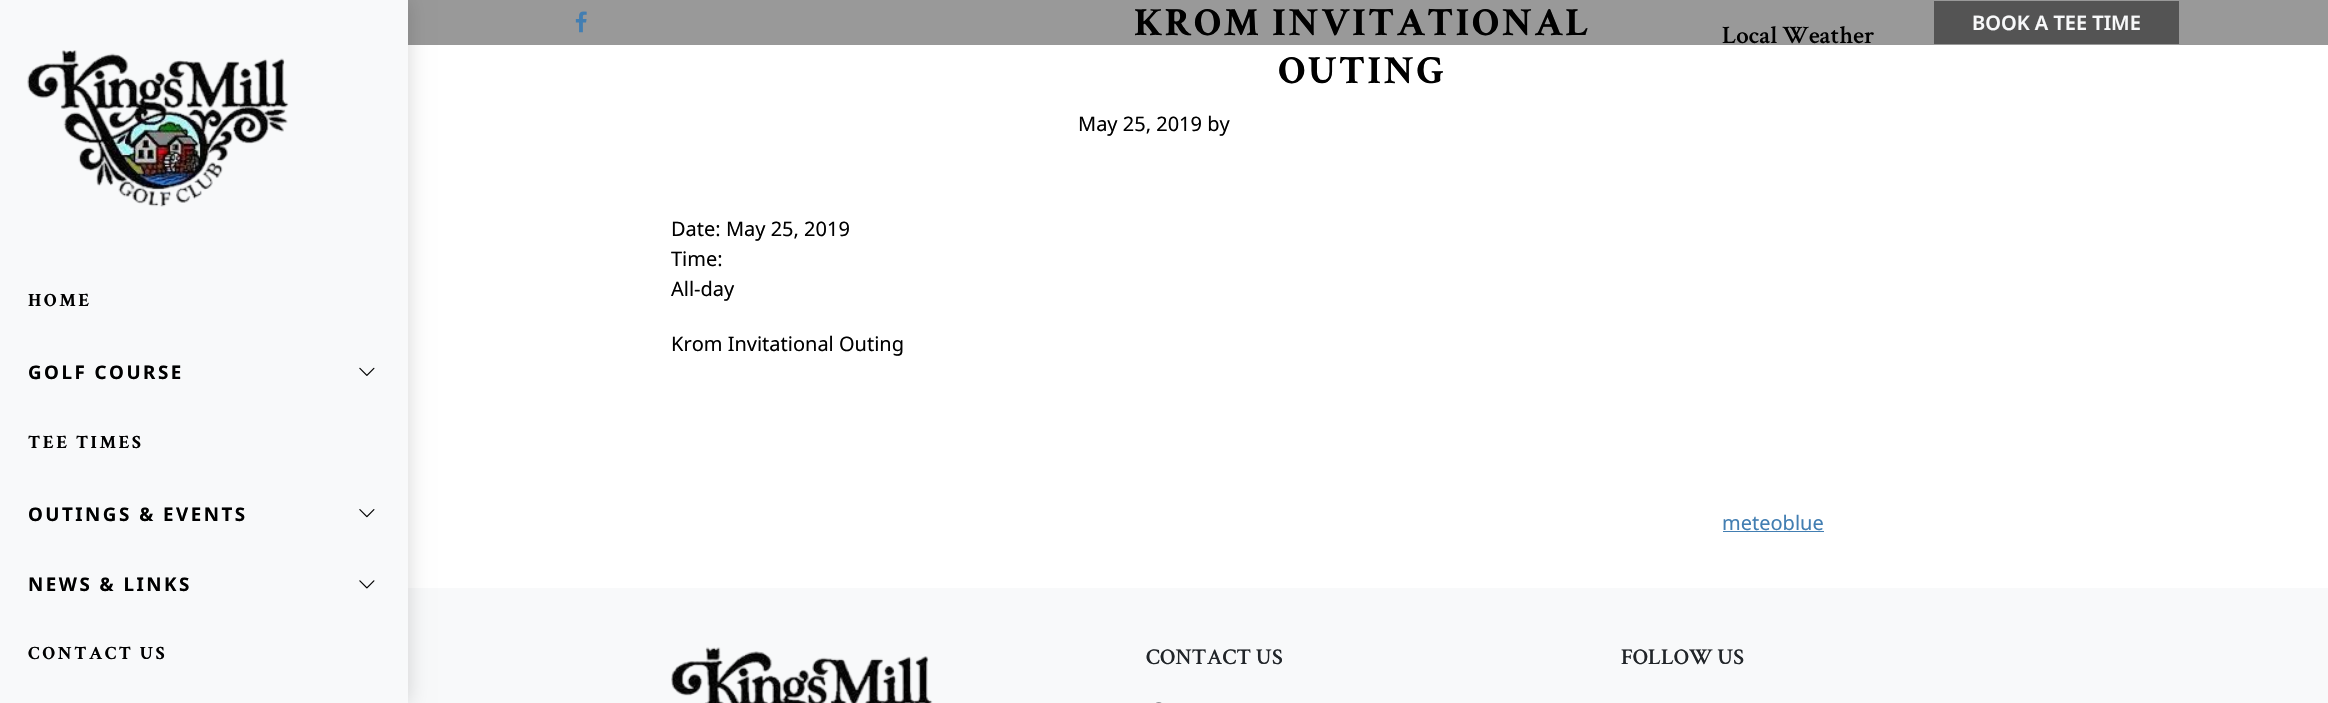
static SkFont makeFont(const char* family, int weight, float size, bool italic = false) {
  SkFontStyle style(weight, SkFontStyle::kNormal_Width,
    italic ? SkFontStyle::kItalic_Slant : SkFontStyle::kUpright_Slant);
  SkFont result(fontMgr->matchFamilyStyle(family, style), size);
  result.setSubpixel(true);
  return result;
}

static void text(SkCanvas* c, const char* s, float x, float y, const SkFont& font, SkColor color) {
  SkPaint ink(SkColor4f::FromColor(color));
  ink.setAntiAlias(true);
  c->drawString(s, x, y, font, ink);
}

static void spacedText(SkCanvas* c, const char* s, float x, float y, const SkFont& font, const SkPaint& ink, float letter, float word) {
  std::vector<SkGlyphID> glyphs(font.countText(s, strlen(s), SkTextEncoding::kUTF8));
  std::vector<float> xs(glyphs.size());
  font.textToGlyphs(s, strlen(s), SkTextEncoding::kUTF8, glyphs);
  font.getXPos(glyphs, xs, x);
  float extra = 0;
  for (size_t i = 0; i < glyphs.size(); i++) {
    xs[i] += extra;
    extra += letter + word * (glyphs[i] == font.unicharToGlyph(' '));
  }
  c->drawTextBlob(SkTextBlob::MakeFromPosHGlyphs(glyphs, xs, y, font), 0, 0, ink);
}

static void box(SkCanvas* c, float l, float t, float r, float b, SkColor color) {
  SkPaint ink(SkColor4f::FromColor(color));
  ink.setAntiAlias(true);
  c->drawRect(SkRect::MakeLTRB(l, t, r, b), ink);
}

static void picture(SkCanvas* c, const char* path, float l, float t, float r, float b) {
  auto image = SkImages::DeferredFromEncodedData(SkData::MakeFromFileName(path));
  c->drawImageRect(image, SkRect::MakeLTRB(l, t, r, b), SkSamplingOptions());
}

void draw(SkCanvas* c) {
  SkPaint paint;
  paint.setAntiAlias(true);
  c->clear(0xffffffff);
  box(c, 408, 0, 2328, 45, 0xff999999);
  SkFont face1 = makeFont("Crimson Text", 700, 40);
  paint.setColor(0xff000000);
  spacedText(c, "KROM INVITATIONAL", 1134, 35, face1, paint, 2.5f, 0);
  spacedText(c, "OUTING", 1278, 83, face1, paint, 2.5f, 0);
  SkFont face2 = makeFont("Noto Sans", 400, 20);
  text(c, "May 25, 2019 by", 1078, 131, face2, 0xff000000);
  text(c, "Date: May 25, 2019", 671, 236, face2, 0xff000000);
  text(c, "Time:", 671, 266, face2, 0xff000000);
  text(c, "All-day", 671, 296, face2, 0xff000000);
  text(c, "Krom Invitational Outing", 671, 351, face2, 0xff000000);
  SkFont face3 = makeFont("Crimson Text", 600, 25);
  text(c, "Local Weather", 1722, 43, face3, 0xff000000);
  text(c, "meteoblue", 1722, 530, face2, 0xff427eb2);
  box(c, 1723, 531, 1824, 532, 0xff427eb2);
  picture(c, "img_01.png", 575, 11, 587, 33);
  box(c, 1934, 1, 2179, 44, 0xff545454);
  SkFont face4 = makeFont("Noto Sans", 600, 20);
  text(c, "BOOK A TEE TIME", 1972, 30, face4, 0xfff8f9fa);
  box(c, 408, 588, 2328, 703, 0xfff8f9fa);
  paint.setColor(0x29000000);
  paint.setMaskFilter(SkMaskFilter::MakeBlur(kNormal_SkBlurStyle, 10));
  c->drawRect(SkRect::MakeLTRB(0, 0, 408, 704), paint);
  paint.setMaskFilter(nullptr);
  box(c, 0, 0, 408, 703, 0xfff8f9fa);
  picture(c, "img_02.png", 27, 50, 289, 207);
  SkFont face5 = makeFont("Crimson Text", 700, 18.75f);
  paint.setColor(0xff000000);
  spacedText(c, "HOME", 28, 306, face5, paint, 2.5f, 0);
  SkFont face6 = makeFont("Noto Sans", 700, 18.75f);
  spacedText(c, "GOLF COURSE", 28, 379, face6, paint, 2.5f, 0);
  picture(c, "img_03.png", 359, 367, 375, 376);
  spacedText(c, "TEE TIMES", 28, 448, face5, paint, 2.5f, 0);
  spacedText(c, "OUTINGS & EVENTS", 28, 521, face6, paint, 2.5f, 0);
  picture(c, "img_04.png", 359, 509, 375, 518);
  spacedText(c, "NEWS & LINKS", 28, 591, face6, paint, 2.5f, 0);
  picture(c, "img_05.png", 359, 580, 375, 589);
  spacedText(c, "CONTACT US", 28, 659, face5, paint, 2.5f, 0);
  picture(c, "img_06.png", 671, 647, 933, 703);
  SkFont face7 = makeFont("Crimson Text", 600, 22.5f);
  text(c, "CONTACT US", 1146, 664, face7, 0xff212529);
  picture(c, "img_07.png", 1156, 702, 1162, 703);
  text(c, "FOLLOW US", 1621, 664, face7, 0xff212529);
}
